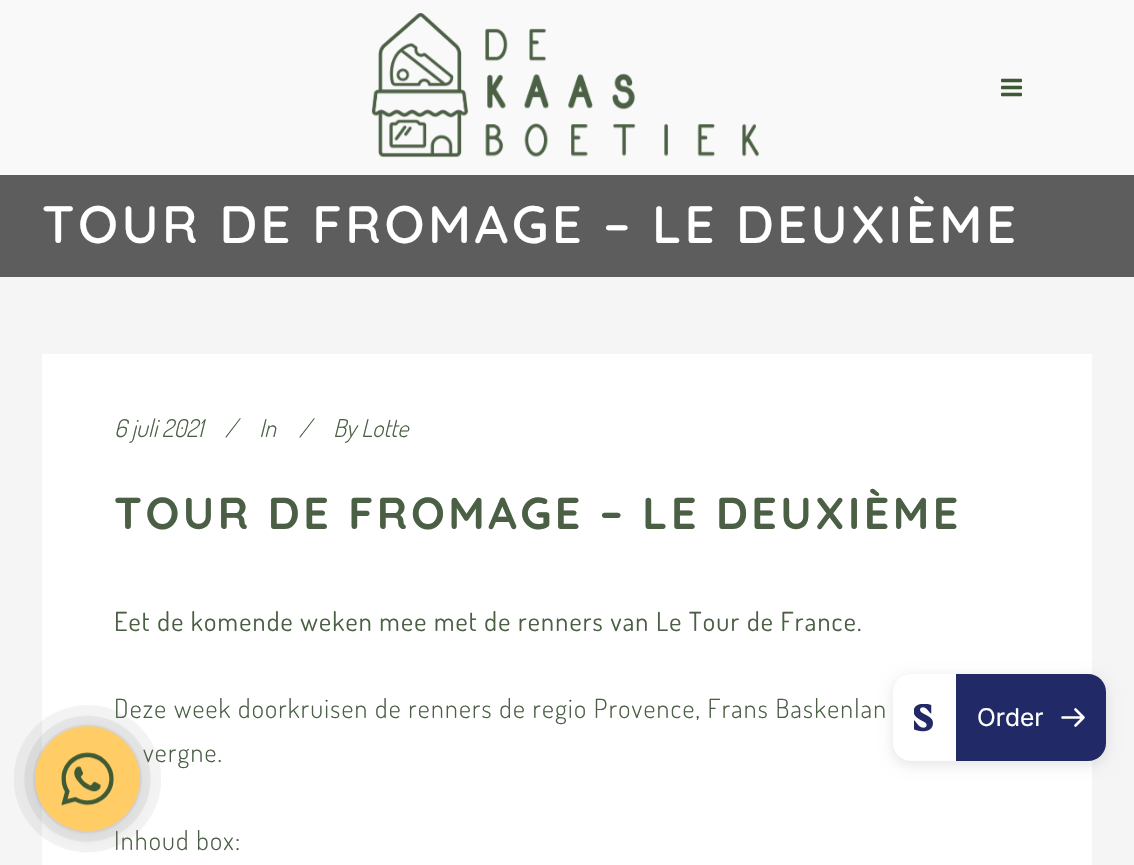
static SkFont makeFont(const char* family, int weight, float size, bool italic = false) {
  SkFontStyle style(weight, SkFontStyle::kNormal_Width,
    italic ? SkFontStyle::kItalic_Slant : SkFontStyle::kUpright_Slant);
  SkFont result(fontMgr->matchFamilyStyle(family, style), size);
  result.setSubpixel(true);
  return result;
}

static void text(SkCanvas* c, const char* s, float x, float y, const SkFont& font, SkColor color) {
  SkPaint ink(SkColor4f::FromColor(color));
  ink.setAntiAlias(true);
  c->drawString(s, x, y, font, ink);
}

static void spacedText(SkCanvas* c, const char* s, float x, float y, const SkFont& font, const SkPaint& ink, float letter, float word) {
  std::vector<SkGlyphID> glyphs(font.countText(s, strlen(s), SkTextEncoding::kUTF8));
  std::vector<float> xs(glyphs.size());
  font.textToGlyphs(s, strlen(s), SkTextEncoding::kUTF8, glyphs);
  font.getXPos(glyphs, xs, x);
  float extra = 0;
  for (size_t i = 0; i < glyphs.size(); i++) {
    xs[i] += extra;
    extra += letter + word * (glyphs[i] == font.unicharToGlyph(' '));
  }
  c->drawTextBlob(SkTextBlob::MakeFromPosHGlyphs(glyphs, xs, y, font), 0, 0, ink);
}

static void box(SkCanvas* c, float l, float t, float r, float b, SkColor color) {
  SkPaint ink(SkColor4f::FromColor(color));
  ink.setAntiAlias(true);
  c->drawRect(SkRect::MakeLTRB(l, t, r, b), ink);
}

static void picture(SkCanvas* c, const char* path, float l, float t, float r, float b) {
  auto image = SkImages::DeferredFromEncodedData(SkData::MakeFromFileName(path));
  c->drawImageRect(image, SkRect::MakeLTRB(l, t, r, b), SkSamplingOptions());
}

void draw(SkCanvas* c) {
  SkPaint paint;
  paint.setAntiAlias(true);
  c->clear(0xfff5f5f5);
  box(c, 0, 0, 1134, 175, 0xfff9f9f9);
  picture(c, "img_01.png", 371, 13, 760, 158);
  picture(c, "img_02.png", 1001, 78, 1022, 97);
  box(c, 0, 175, 1134, 277, 0xff5d5d5d);
  SkFont face1 = makeFont("Quicksand", 600, 52.5f);
  paint.setColor(0xffffffff);
  spacedText(c, "TOUR DE FROMAGE – LE DEUXIÈME", 42, 243, face1, paint, 3.5f, 0);
  box(c, 42, 354, 1092, 865, 0xffffffff);
  SkFont face2 = makeFont("Dosis", 300, 24.5f, true);
  text(c, "6 juli 2021", 114, 437, face2, 0xff4b5f45);
  text(c, "/", 225, 437, face2, 0xff4b5f45);
  text(c, "In", 259, 437, face2, 0xff4b5f45);
  text(c, "/", 299, 437, face2, 0xff4b5f45);
  text(c, "By Lotte", 333, 437, face2, 0xff4b5f45);
  SkFont face3 = makeFont("Quicksand", 700, 44.6f);
  paint.setColor(0xff4b5f45);
  spacedText(c, "TOUR DE FROMAGE – LE DEUXIÈME", 114, 529, face3, paint, 3.5f, 0);
  SkFont face4 = makeFont("Dosis", 400, 26.25f);
  spacedText(c, "Eet de komende weken mee met de renners van Le Tour de France.", 114, 631, face4, paint, 1.22f, 0);
  SkFont face5 = makeFont("Dosis", 300, 26.25f);
  spacedText(c, "Deze week doorkruisen de renners de regio Provence, Frans Baskenlan", 114, 718, face5, paint, 1.22f, 0);
  spacedText(c, "vergne.", 143, 762, face5, paint, 1.22f, 0);
  spacedText(c, "Inhoud box:", 114, 850, face5, paint, 1.22f, 0);
  picture(c, "img_03.png", 14, 705, 161, 853);
  paint.setColor(0x1a000000);
  paint.setMaskFilter(SkMaskFilter::MakeBlur(kNormal_SkBlurStyle, 7));
  c->drawRoundRect(SkRect::MakeLTRB(893, 677, 1106, 765), 18, 18, paint);
  paint.setMaskFilter(nullptr);
  paint.setColor(0xffffffff);
  c->drawPath(SkPathBuilder().moveTo(911, 674).lineTo(956, 674).lineTo(956, 761).lineTo(911, 761).cubicTo(901, 761, 893, 753, 893, 743).lineTo(893, 692).cubicTo(893, 682, 901, 674, 911, 674).close().detach(), paint);
  picture(c, "img_04.png", 914, 704, 933, 732);
  paint.setColor(0xff212966);
  c->drawPath(SkPathBuilder().moveTo(956, 674).lineTo(1088, 674).cubicTo(1098, 674, 1106, 682, 1106, 692).lineTo(1106, 743).cubicTo(1106, 753, 1098, 761, 1088, 761).lineTo(956, 761).close().detach(), paint);
  SkFont face6 = makeFont("Inter", 400, 24.5f);
  text(c, "Order", 977, 726, face6, 0xffffffff);
  paint.setStyle(SkPaint::kStroke_Style);
  paint.setStrokeWidth(2.6f);
  paint.setStrokeCap(SkPaint::kRound_Cap);
  paint.setStrokeJoin(SkPaint::kRound_Join);
  paint.setColor(0xffffffff);
  c->drawPath(SkPathBuilder().moveTo(1062.5f, 717.5f).lineTo(1083.5f, 717.5f).moveTo(1083.5f, 717.5f).lineTo(1075.5f, 709.5f).moveTo(1083.5f, 717.5f).lineTo(1075.5f, 725.5f).detach(), paint);
}
